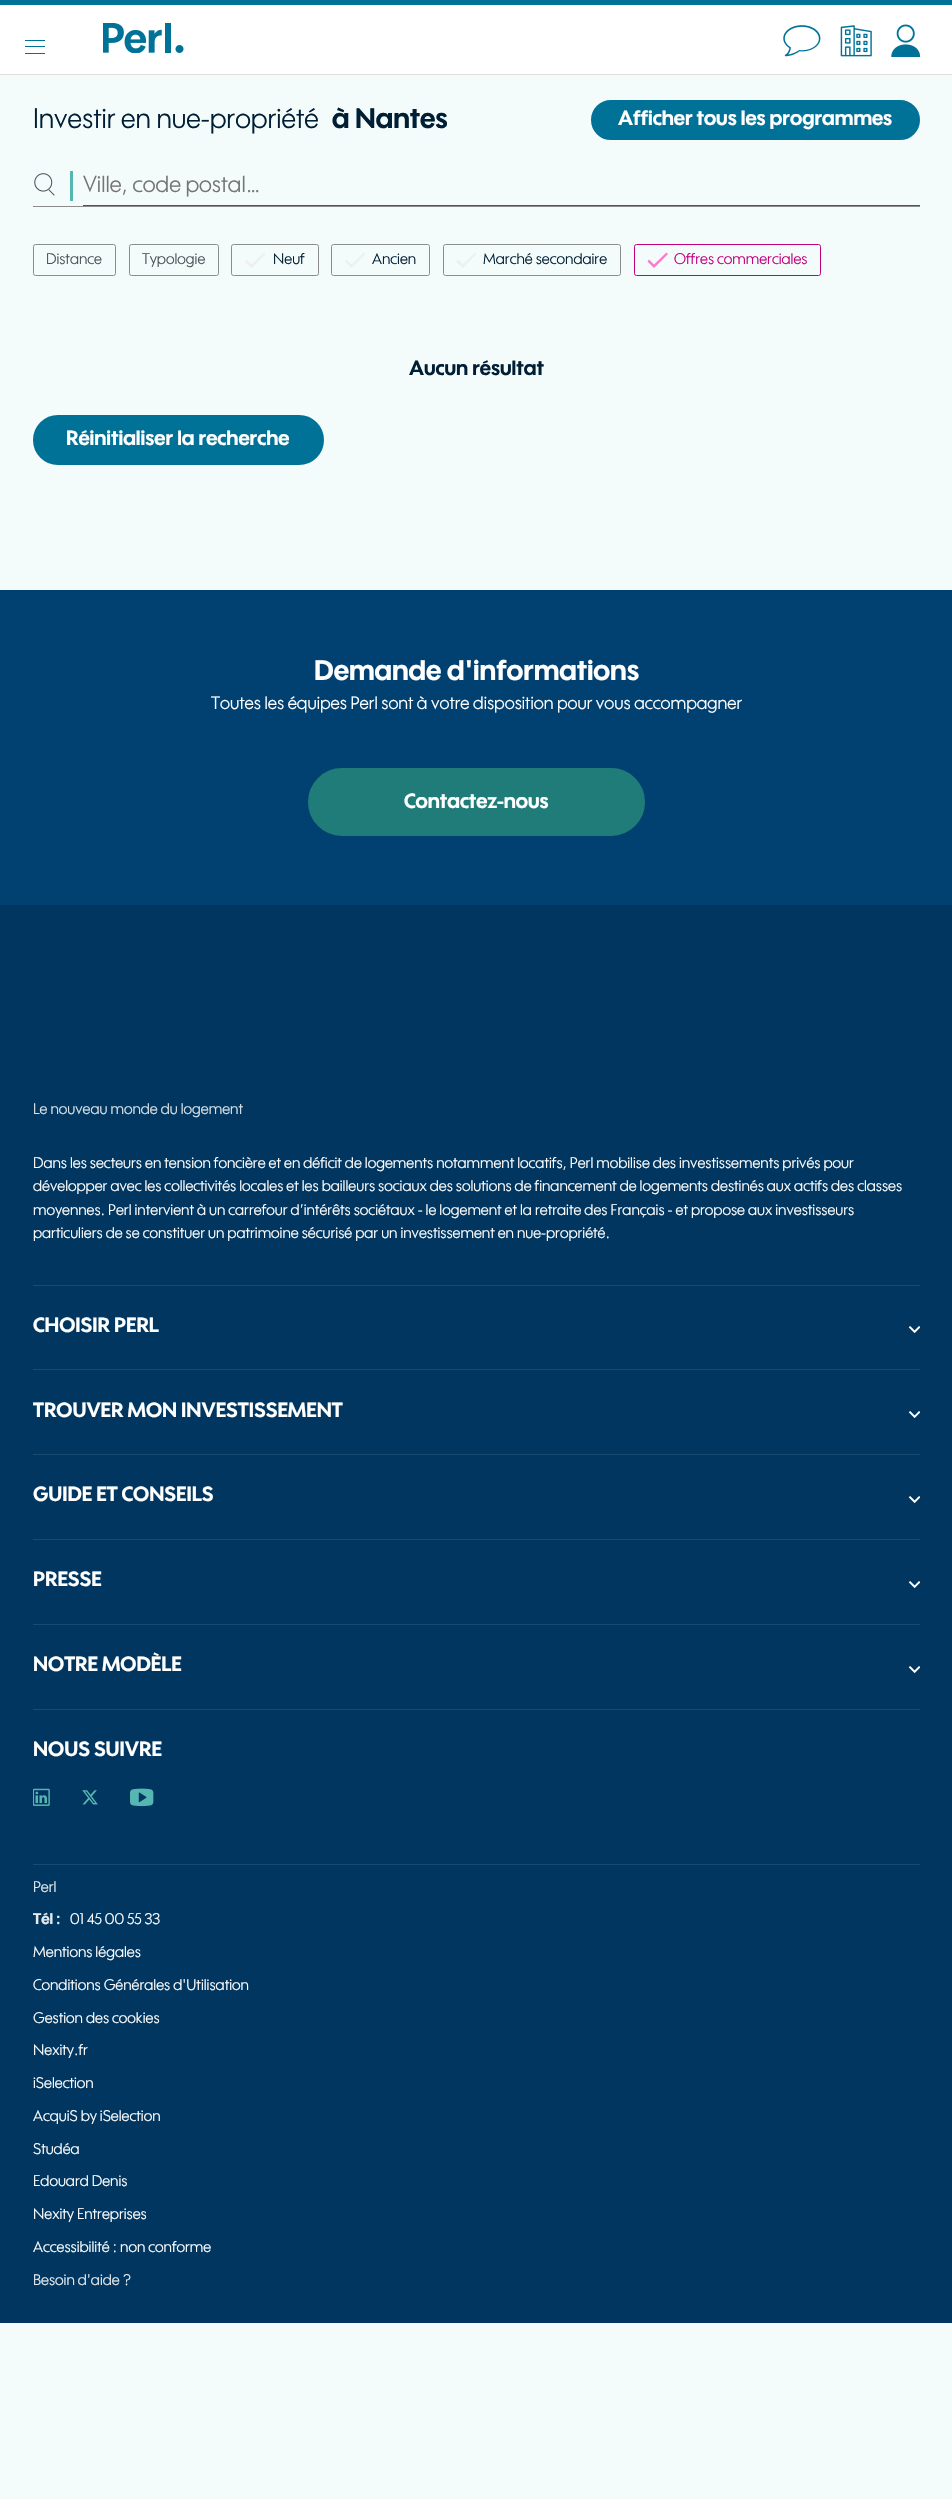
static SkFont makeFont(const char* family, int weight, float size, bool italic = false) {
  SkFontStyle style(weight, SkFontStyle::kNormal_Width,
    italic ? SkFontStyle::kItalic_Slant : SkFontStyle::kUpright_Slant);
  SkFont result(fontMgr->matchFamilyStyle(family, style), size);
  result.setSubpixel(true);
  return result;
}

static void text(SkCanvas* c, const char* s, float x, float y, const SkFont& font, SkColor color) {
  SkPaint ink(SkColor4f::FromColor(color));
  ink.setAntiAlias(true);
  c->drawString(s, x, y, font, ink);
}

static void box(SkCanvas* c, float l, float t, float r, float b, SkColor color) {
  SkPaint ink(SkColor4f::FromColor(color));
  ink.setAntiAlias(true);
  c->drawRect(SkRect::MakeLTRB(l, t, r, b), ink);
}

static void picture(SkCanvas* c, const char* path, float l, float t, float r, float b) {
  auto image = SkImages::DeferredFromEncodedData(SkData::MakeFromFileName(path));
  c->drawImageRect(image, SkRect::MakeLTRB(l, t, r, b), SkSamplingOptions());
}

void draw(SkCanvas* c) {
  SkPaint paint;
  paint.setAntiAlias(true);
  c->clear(0xfff4fbfb);
  box(c, 0, 0, 952, 5, 0xff007297);
  box(c, 0, 5, 952, 74, 0xffffffff);
  box(c, 0, 74, 952, 75, 0xffdedede);
  box(c, 25, 40, 45, 41, 0xff007297);
  box(c, 25, 46, 45, 47, 0xff007297);
  box(c, 25, 53, 45, 54, 0xff007297);
  picture(c, "img_01.png", 103, 23, 184, 53);
  picture(c, "img_02.png", 783, 25, 821, 57);
  picture(c, "img_03.png", 840, 25, 872, 57);
  picture(c, "img_04.png", 891, 24, 921, 57);
  SkFont face1 = makeFont("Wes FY", 400, 27.5f);
  text(c, "Investir en nue-propriété", 33, 128, face1, 0xff001f35);
  SkFont face2 = makeFont("Wes FY", 700, 27.5f);
  text(c, "à Nantes", 332, 128, face2, 0xff001f35);
  paint.setColor(0xff007297);
  c->drawRoundRect(SkRect::MakeLTRB(592.5f, 101.5f, 918.5f, 138.5f), 18.5f, 18.5f, paint);
  paint.setStyle(SkPaint::kStroke_Style);
  paint.setStrokeWidth(3);
  c->drawRoundRect(SkRect::MakeLTRB(592.5f, 101.5f, 918.5f, 138.5f), 18.5f, 18.5f, paint);
  SkFont face3 = makeFont("Wes FY", 700, 20);
  text(c, "Afficher tous les programmes", 618, 125, face3, 0xffffffff);
  box(c, 33, 206, 920, 207, 0xff8c8c8c);
  picture(c, "img_05.png", 34, 173, 55, 196);
  box(c, 70, 171, 73, 201, 0xff56b6b1);
  box(c, 83, 205, 920, 206, 0xff50535a);
  SkFont face4 = makeFont("Wes FY", 400, 22.5f);
  text(c, "Ville, code postal…", 83, 192, face4, 0xff757575);
  paint.setStrokeWidth(1);
  paint.setColor(0xff8c8c8c);
  c->drawRoundRect(SkRect::MakeLTRB(33.5f, 244.5f, 115.5f, 275.5f), 2, 2, paint);
  SkFont face5 = makeFont("Wes FY", 400, 15);
  text(c, "Distance", 46, 264, face5, 0xff50535a);
  c->drawRoundRect(SkRect::MakeLTRB(129.5f, 244.5f, 218.5f, 275.5f), 2, 2, paint);
  text(c, "Typologie", 142, 264, face5, 0xff50535a);
  c->drawRoundRect(SkRect::MakeLTRB(231.5f, 244.5f, 318.5f, 275.5f), 2, 2, paint);
  paint.setStyle(SkPaint::kFill_Style);
  paint.setColor(0xffefefef);
  c->drawPath(SkPathBuilder().moveTo(251.5f, 264.5f).lineTo(246.5f, 259.5f).lineTo(245, 261.5f).lineTo(251.5f, 268).lineTo(265.5f, 254).lineTo(264, 252.5f).close().detach(), paint);
  text(c, "Neuf", 273, 264, face5, 0xff001f35);
  paint.setStyle(SkPaint::kStroke_Style);
  paint.setColor(0xff8c8c8c);
  c->drawRoundRect(SkRect::MakeLTRB(331.5f, 244.5f, 429.5f, 275.5f), 2, 2, paint);
  paint.setStyle(SkPaint::kFill_Style);
  paint.setColor(0xffefefef);
  c->drawPath(SkPathBuilder().moveTo(351.5f, 264.5f).lineTo(346.5f, 259.5f).lineTo(345, 261.5f).lineTo(351.5f, 268).lineTo(365.5f, 254).lineTo(364, 252.5f).close().detach(), paint);
  text(c, "Ancien", 372, 264, face5, 0xff001f35);
  paint.setStyle(SkPaint::kStroke_Style);
  paint.setColor(0xff8c8c8c);
  c->drawRoundRect(SkRect::MakeLTRB(443.5f, 244.5f, 620.5f, 275.5f), 2, 2, paint);
  paint.setStyle(SkPaint::kFill_Style);
  paint.setColor(0xffefefef);
  c->drawPath(SkPathBuilder().moveTo(463, 264.5f).lineTo(458, 259.5f).lineTo(456, 261.5f).lineTo(463, 268).lineTo(476.5f, 254).lineTo(475, 252.5f).close().detach(), paint);
  text(c, "Marché secondaire", 483, 264, face5, 0xff001f35);
  paint.setStyle(SkPaint::kStroke_Style);
  paint.setColor(0xffc3007e);
  c->drawRoundRect(SkRect::MakeLTRB(634.5f, 244.5f, 820.5f, 275.5f), 2, 2, paint);
  paint.setStyle(SkPaint::kFill_Style);
  paint.setColor(0xffff77cf);
  c->drawPath(SkPathBuilder().moveTo(654, 264.5f).lineTo(649, 259.5f).lineTo(647.5f, 261.5f).lineTo(654, 268).lineTo(668, 254).lineTo(666.5f, 252.5f).close().detach(), paint);
  text(c, "Offres commerciales", 674, 264, face5, 0xffc3007e);
  text(c, "Aucun résultat", 409, 375, face3, 0xff001f35);
  paint.setColor(0xff007297);
  c->drawRoundRect(SkRect::MakeLTRB(34.5f, 416.5f, 322.5f, 463.5f), 23.5f, 23.5f, paint);
  paint.setStyle(SkPaint::kStroke_Style);
  paint.setStrokeWidth(3);
  c->drawRoundRect(SkRect::MakeLTRB(34.5f, 416.5f, 322.5f, 463.5f), 23.5f, 23.5f, paint);
  text(c, "Réinitialiser la recherche", 66, 445, face3, 0xffffffff);
  box(c, 0, 590, 952, 905, 0xff004172);
  text(c, "Demande d'informations", 314, 680, face2, 0xffffffff);
  SkFont face6 = makeFont("Wes FY", 400, 17.5f);
  text(c, "Toutes les équipes Perl sont à votre disposition pour vous accompagner", 211, 709, face6, 0xffffffff);
  paint.setStyle(SkPaint::kFill_Style);
  paint.setColor(0xff1f7c78);
  c->drawRoundRect(SkRect::MakeLTRB(309.5f, 769.5f, 643.5f, 834.5f), 32.5f, 32.5f, paint);
  paint.setStyle(SkPaint::kStroke_Style);
  c->drawRoundRect(SkRect::MakeLTRB(309.5f, 769.5f, 643.5f, 834.5f), 32.5f, 32.5f, paint);
  text(c, "Contactez-nous", 404, 808, face3, 0xffffffff);
  box(c, 0, 905, 952, 2323, 0xff00365f);
  box(c, 33, 1285, 920, 1286, 0xff1a4a6f);
  text(c, "Le nouveau monde du logement", 33, 1114, face5, 0xffd9e1e7);
  text(c, "Dans les secteurs en tension foncière et en déficit de logements notamment locatifs, Perl mobilise des investissements privés pour", 33, 1168, face5, 0xffffffff);
  text(c, "développer avec les collectivités locales et les bailleurs sociaux des solutions de financement de logements destinés aux actifs des classes", 33, 1191, face5, 0xffffffff);
  text(c, "moyennes. Perl intervient à un carrefour d’intérêts sociétaux - le logement et la retraite des Français - et propose aux investisseurs", 33, 1215, face5, 0xffffffff);
  text(c, "particuliers de se constituer un patrimoine sécurisé par un investissement en nue-propriété.", 33, 1238, face5, 0xffffffff);
  box(c, 33, 1369, 920, 1370, 0xff1a4a6f);
  text(c, "CHOISIR PERL", 33, 1332, face3, 0xffffffff);
  picture(c, "img_06.png", 908, 1326, 920, 1334);
  box(c, 33, 1454, 920, 1455, 0xff1a4a6f);
  c->save();
  c->clipRect(SkRect::MakeLTRB(33, 1370, 920, 1454));
  text(c, "TROUVER MON INVESTISSEMENT", 33, 1417, face3, 0xffffffff);
  c->restore();
  picture(c, "img_06.png", 908, 1411, 920, 1419);
  box(c, 33, 1539, 920, 1540, 0xff1a4a6f);
  text(c, "GUIDE ET CONSEILS", 33, 1501, face3, 0xffffffff);
  picture(c, "img_06.png", 908, 1496, 920, 1504);
  box(c, 33, 1624, 920, 1625, 0xff1a4a6f);
  text(c, "PRESSE", 33, 1586, face3, 0xffffffff);
  picture(c, "img_06.png", 908, 1581, 920, 1589);
  box(c, 33, 1709, 920, 1710, 0xff1a4a6f);
  text(c, "NOTRE MODÈLE", 33, 1671, face3, 0xffffffff);
  picture(c, "img_06.png", 908, 1666, 920, 1674);
  box(c, 33, 1864, 920, 1865, 0xff1a4a6f);
  text(c, "NOUS SUIVRE", 33, 1756, face3, 0xffffffff);
  picture(c, "img_07.png", 33, 1788, 50, 1806);
  picture(c, "img_08.png", 82, 1790, 98, 1805);
  picture(c, "img_09.png", 130, 1788, 154, 1807);
  text(c, "Perl", 33, 1892, face5, 0xffe6ebef);
  SkFont face7 = makeFont("Wes FY", 700, 15);
  text(c, "Tél :", 33, 1924, face7, 0xffe6ebef);
  text(c, "01 45 00 55 33", 70, 1924, face5, 0xffffffff);
  text(c, "Mentions légales", 33, 1957, face5, 0xffffffff);
  text(c, "Conditions Générales d'Utilisation", 33, 1990, face5, 0xffffffff);
  text(c, "Gestion des cookies", 33, 2023, face5, 0xffffffff);
  text(c, "Nexity.fr", 33, 2055, face5, 0xffffffff);
  text(c, "iSelection", 33, 2088, face5, 0xffffffff);
  text(c, "AcquiS by iSelection", 33, 2121, face5, 0xffffffff);
  text(c, "Studéa", 33, 2154, face5, 0xffffffff);
  text(c, "Edouard Denis", 33, 2186, face5, 0xffffffff);
  text(c, "Nexity Entreprises", 33, 2219, face5, 0xffffffff);
  text(c, "Accessibilité : non conforme", 33, 2252, face5, 0xffffffff);
  text(c, "Besoin d'aide ?", 33, 2285, face5, 0xffe6ebef);
}
